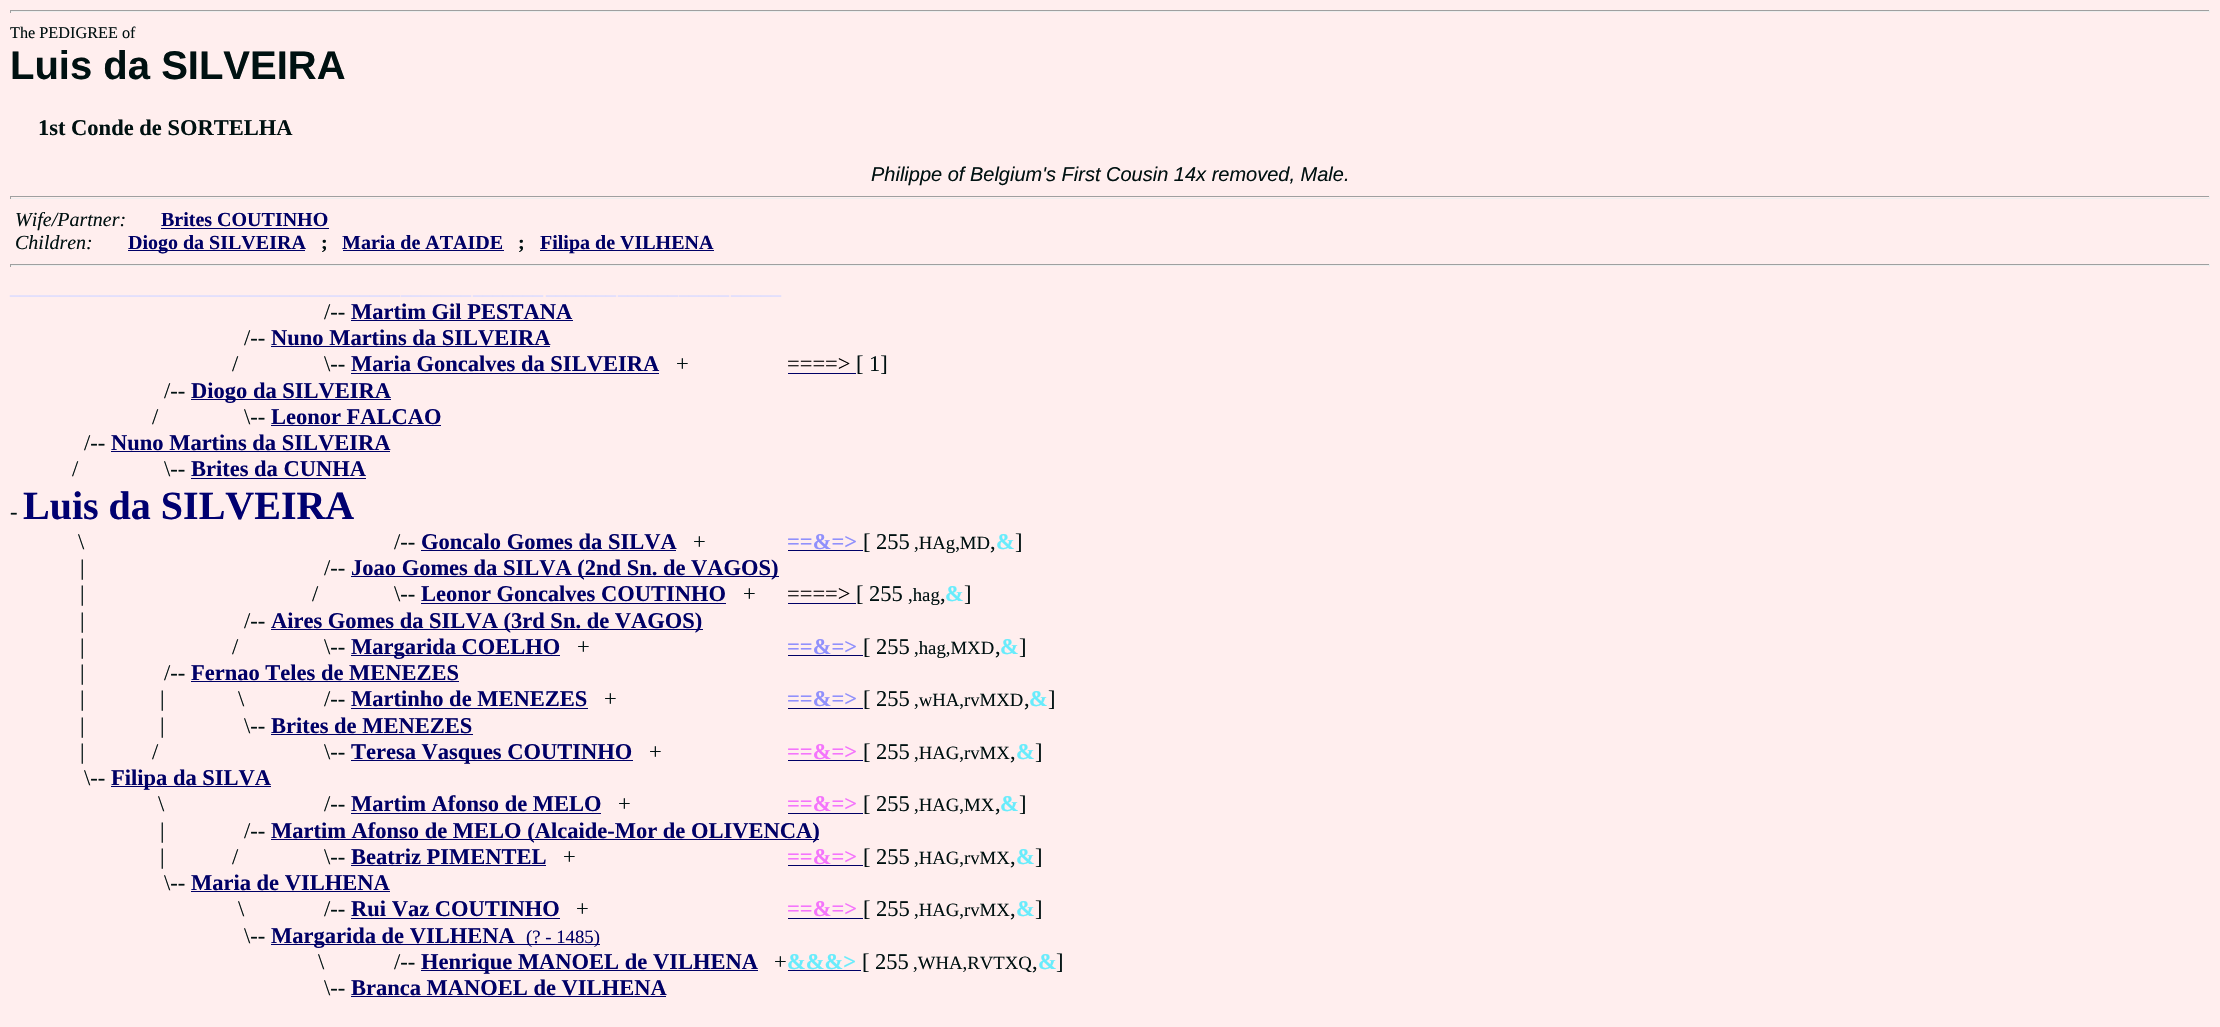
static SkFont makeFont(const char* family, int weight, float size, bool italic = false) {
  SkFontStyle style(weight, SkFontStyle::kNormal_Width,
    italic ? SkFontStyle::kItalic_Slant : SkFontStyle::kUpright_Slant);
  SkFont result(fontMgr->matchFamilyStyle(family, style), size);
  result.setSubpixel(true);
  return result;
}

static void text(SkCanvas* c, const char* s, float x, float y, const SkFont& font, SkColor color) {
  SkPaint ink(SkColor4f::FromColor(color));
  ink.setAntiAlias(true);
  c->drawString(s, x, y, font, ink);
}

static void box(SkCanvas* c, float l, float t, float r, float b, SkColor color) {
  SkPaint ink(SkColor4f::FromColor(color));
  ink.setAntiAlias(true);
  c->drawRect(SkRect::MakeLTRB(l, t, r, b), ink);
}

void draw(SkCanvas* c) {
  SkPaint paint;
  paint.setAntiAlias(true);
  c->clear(0xffffeeee);
  box(c, 10, 10, 2210, 11, 0xff9f9f9f);
  box(c, 2209, 10, 2210, 13, 0xffeeeeee);
  box(c, 10, 11, 2210, 12, 0xffeeeeee);
  box(c, 10, 10, 11, 13, 0xff9f9f9f);
  SkFont face1 = makeFont("Liberation Serif", 400, 16.25f);
  text(c, "The PEDIGREE of", 10, 38, face1, 0xff001111);
  SkFont face2 = makeFont("Liberation Sans", 700, 40);
  text(c, "Luis da SILVEIRA", 10, 79, face2, 0xff001111);
  SkFont face3 = makeFont("Liberation Serif", 700, 22.5f);
  text(c, "1st Conde de SORTELHA", 38, 135, face3, 0xff001111);
  SkFont face4 = makeFont("Liberation Sans", 400, 20, true);
  text(c, "Philippe of Belgium's First Cousin 14x removed, Male.", 871, 181, face4, 0xff001111);
  box(c, 10, 196, 2210, 197, 0xff9f9f9f);
  box(c, 2209, 196, 2210, 199, 0xffeeeeee);
  box(c, 10, 198, 2210, 199, 0xffeeeeee);
  box(c, 10, 196, 11, 199, 0xff9f9f9f);
  SkFont face5 = makeFont("Liberation Serif", 400, 20, true);
  text(c, "Wife/Partner:", 15, 226, face5, 0xff001111);
  SkFont face6 = makeFont("Liberation Serif", 700, 20);
  text(c, "Brites COUTINHO", 161, 226, face6, 0xff000066);
  box(c, 161, 228, 329, 229, 0xff000066);
  text(c, "Children:", 15, 249, face5, 0xff001111);
  box(c, 128, 250, 305, 251, 0xff000066);
  text(c, "Diogo da SILVEIRA", 128, 249, face6, 0xff000066);
  text(c, ";", 321, 249, face6, 0xff001111);
  text(c, "Maria de ATAIDE", 342, 249, face6, 0xff000066);
  box(c, 343, 250, 504, 251, 0xff000066);
  text(c, ";", 518, 249, face6, 0xff001111);
  box(c, 540, 250, 714, 251, 0xff000066);
  text(c, "Filipa de VILHENA", 540, 249, face6, 0xff000066);
  box(c, 10, 264, 2210, 265, 0xff9f9f9f);
  box(c, 2209, 264, 2210, 267, 0xffeeeeee);
  box(c, 10, 265, 2210, 266, 0xffeeeeee);
  box(c, 10, 264, 11, 267, 0xff9f9f9f);
  text(c, "_______________________________________", 10, 294, face6, 0xffddddff);
  text(c, "_______", 401, 294, face6, 0xffddddff);
  text(c, "_______", 473, 294, face6, 0xffddddff);
  text(c, "_______", 546, 294, face6, 0xffddddff);
  text(c, "______", 618, 294, face6, 0xffddddff);
  text(c, "_____", 679, 294, face6, 0xffddddff);
  text(c, "_____", 731, 294, face6, 0xffddddff);
  SkFont face7 = makeFont("Liberation Serif", 400, 22.5f);
  text(c, "/--", 324, 319, face7, 0xff001111);
  text(c, "Martim Gil PESTANA", 351, 319, face3, 0xff000066);
  box(c, 351, 320, 573, 321, 0xff000066);
  text(c, "/--", 244, 345, face7, 0xff001111);
  text(c, "Nuno Martins da SILVEIRA", 271, 345, face3, 0xff000066);
  box(c, 271, 346, 550, 347, 0xff000066);
  text(c, "/", 232, 371, face7, 0xff001111);
  text(c, "\\--", 324, 371, face7, 0xff001111);
  text(c, "Maria Goncalves da SILVEIRA", 351, 371, face3, 0xff000066);
  box(c, 351, 373, 659, 374, 0xff000066);
  text(c, "+", 676, 371, face7, 0xff001111);
  text(c, "====>", 787, 371, face7, 0xff000000);
  box(c, 788, 373, 856, 374, 0xff000066);
  text(c, "[ 1]", 856, 371, face7, 0xff001111);
  text(c, "/--", 164, 398, face7, 0xff001111);
  box(c, 191, 399, 391, 400, 0xff000066);
  text(c, "Diogo da SILVEIRA", 191, 398, face3, 0xff000066);
  text(c, "/", 152, 424, face7, 0xff001111);
  text(c, "\\--", 244, 424, face7, 0xff001111);
  text(c, "Leonor FALCAO", 271, 424, face3, 0xff000066);
  box(c, 271, 425, 441, 426, 0xff000066);
  text(c, "/--", 84, 450, face7, 0xff001111);
  text(c, "Nuno Martins da SILVEIRA", 111, 450, face3, 0xff000066);
  box(c, 111, 451, 390, 452, 0xff000066);
  text(c, "/", 72, 476, face7, 0xff001111);
  text(c, "\\--", 164, 476, face7, 0xff001111);
  text(c, "Brites da CUNHA", 191, 476, face3, 0xff000066);
  box(c, 191, 478, 366, 479, 0xff000066);
  text(c, "-", 10, 519, face7, 0xff001111);
  SkFont face8 = makeFont("Liberation Serif", 700, 40);
  text(c, "Luis da SILVEIRA", 23, 519, face8, 0xff000070);
  text(c, "\\", 78, 549, face7, 0xff001111);
  text(c, "/--", 394, 549, face7, 0xff001111);
  text(c, "Goncalo Gomes da SILVA", 421, 549, face3, 0xff000066);
  box(c, 421, 550, 676, 551, 0xff000066);
  text(c, "+", 693, 549, face7, 0xff001111);
  text(c, "==&=>", 787, 549, face3, 0xff9090fc);
  box(c, 788, 550, 863, 551, 0xff000066);
  text(c, "[ 255", 863, 549, face7, 0xff001111);
  SkFont face9 = makeFont("Liberation Serif", 400, 18.75f);
  text(c, ",HAg,MD", 914, 549, face9, 0xff001111);
  text(c, ",", 990, 549, face7, 0xff001111);
  text(c, "&", 996, 549, face3, 0xff68ecfc);
  text(c, "]", 1015, 549, face7, 0xff001111);
  text(c, "|", 80, 575, face7, 0xff001111);
  text(c, "/--", 324, 575, face7, 0xff001111);
  box(c, 351, 576, 779, 577, 0xff000066);
  text(c, "Joao Gomes da SILVA (2nd Sn. de VAGOS)", 351, 575, face3, 0xff000066);
  text(c, "|", 80, 601, face7, 0xff001111);
  text(c, "/", 312, 601, face7, 0xff001111);
  text(c, "\\--", 394, 601, face7, 0xff001111);
  text(c, "Leonor Goncalves COUTINHO", 421, 601, face3, 0xff000066);
  box(c, 421, 603, 726, 604, 0xff000066);
  text(c, "+", 743, 601, face7, 0xff001111);
  text(c, "====>", 787, 601, face7, 0xff000000);
  box(c, 788, 603, 856, 604, 0xff000066);
  text(c, "[ 255", 856, 601, face7, 0xff001111);
  text(c, ",hag", 908, 601, face9, 0xff001111);
  text(c, ",", 940, 601, face7, 0xff001111);
  text(c, "&", 945, 601, face3, 0xff68ecfc);
  text(c, "]", 964, 601, face7, 0xff001111);
  text(c, "|", 80, 628, face7, 0xff001111);
  text(c, "/--", 244, 628, face7, 0xff001111);
  box(c, 271, 629, 703, 630, 0xff000066);
  text(c, "Aires Gomes da SILVA (3rd Sn. de VAGOS)", 271, 628, face3, 0xff000066);
  text(c, "|", 80, 654, face7, 0xff001111);
  text(c, "/", 232, 654, face7, 0xff001111);
  text(c, "\\--", 324, 654, face7, 0xff001111);
  box(c, 351, 655, 560, 656, 0xff000066);
  text(c, "Margarida COELHO", 351, 654, face3, 0xff000066);
  text(c, "+", 577, 654, face7, 0xff001111);
  text(c, "==&=>", 787, 654, face3, 0xff9090fc);
  box(c, 788, 655, 863, 656, 0xff000066);
  text(c, "[ 255", 863, 654, face7, 0xff001111);
  text(c, ",hag,MXD", 914, 654, face9, 0xff001111);
  text(c, ",", 995, 654, face7, 0xff001111);
  text(c, "&", 1000, 654, face3, 0xff68ecfc);
  text(c, "]", 1019, 654, face7, 0xff001111);
  text(c, "|", 80, 680, face7, 0xff001111);
  text(c, "/--", 164, 680, face7, 0xff001111);
  text(c, "Fernao Teles de MENEZES", 191, 680, face3, 0xff000066);
  box(c, 191, 681, 459, 682, 0xff000066);
  text(c, "|", 80, 706, face7, 0xff001111);
  text(c, "|", 160, 706, face7, 0xff001111);
  text(c, "\\", 238, 706, face7, 0xff001111);
  text(c, "/--", 324, 706, face7, 0xff001111);
  text(c, "Martinho de MENEZES", 351, 706, face3, 0xff000066);
  box(c, 351, 708, 588, 709, 0xff000066);
  text(c, "+", 604, 706, face7, 0xff001111);
  text(c, "==&=>", 787, 706, face3, 0xff9090fc);
  box(c, 788, 708, 863, 709, 0xff000066);
  text(c, "[ 255", 863, 706, face7, 0xff001111);
  text(c, ",wHA,rvMXD", 914, 706, face9, 0xff001111);
  text(c, ",", 1024, 706, face7, 0xff001111);
  text(c, "&", 1029, 706, face3, 0xff68ecfc);
  text(c, "]", 1048, 706, face7, 0xff001111);
  text(c, "|", 80, 733, face7, 0xff001111);
  text(c, "|", 160, 733, face7, 0xff001111);
  text(c, "\\--", 244, 733, face7, 0xff001111);
  text(c, "Brites de MENEZES", 271, 733, face3, 0xff000066);
  box(c, 271, 734, 473, 735, 0xff000066);
  text(c, "|", 80, 759, face7, 0xff001111);
  text(c, "/", 152, 759, face7, 0xff001111);
  text(c, "\\--", 324, 759, face7, 0xff001111);
  box(c, 351, 760, 633, 761, 0xff000066);
  text(c, "Teresa Vasques COUTINHO", 351, 759, face3, 0xff000066);
  text(c, "+", 649, 759, face7, 0xff001111);
  text(c, "==&=>", 787, 759, face3, 0xfff474fc);
  box(c, 788, 760, 863, 761, 0xff000066);
  text(c, "[ 255", 863, 759, face7, 0xff001111);
  text(c, ",HAG,rvMX", 914, 759, face9, 0xff001111);
  text(c, ",", 1010, 759, face7, 0xff001111);
  text(c, "&", 1016, 759, face3, 0xff68ecfc);
  text(c, "]", 1035, 759, face7, 0xff001111);
  text(c, "\\--", 84, 785, face7, 0xff001111);
  box(c, 111, 786, 271, 787, 0xff000066);
  text(c, "Filipa da SILVA", 111, 785, face3, 0xff000066);
  text(c, "\\", 158, 811, face7, 0xff001111);
  text(c, "/--", 324, 811, face7, 0xff001111);
  text(c, "Martim Afonso de MELO", 351, 811, face3, 0xff000066);
  box(c, 351, 813, 601, 814, 0xff000066);
  text(c, "+", 618, 811, face7, 0xff001111);
  text(c, "==&=>", 787, 811, face3, 0xfff474fc);
  box(c, 788, 813, 863, 814, 0xff000066);
  text(c, "[ 255", 863, 811, face7, 0xff001111);
  text(c, ",HAG,MX", 914, 811, face9, 0xff001111);
  text(c, ",", 995, 811, face7, 0xff001111);
  text(c, "&", 1000, 811, face3, 0xff68ecfc);
  text(c, "]", 1019, 811, face7, 0xff001111);
  text(c, "|", 160, 838, face7, 0xff001111);
  text(c, "/--", 244, 838, face7, 0xff001111);
  box(c, 271, 839, 819, 840, 0xff000066);
  text(c, "Martim Afonso de MELO (Alcaide-Mor de OLIVENCA)", 271, 838, face3, 0xff000066);
  text(c, "|", 160, 864, face7, 0xff001111);
  text(c, "/", 232, 864, face7, 0xff001111);
  text(c, "\\--", 324, 864, face7, 0xff001111);
  text(c, "Beatriz PIMENTEL", 351, 864, face3, 0xff000066);
  box(c, 351, 865, 546, 866, 0xff000066);
  text(c, "+", 563, 864, face7, 0xff001111);
  text(c, "==&=>", 787, 864, face3, 0xfff474fc);
  box(c, 788, 865, 863, 866, 0xff000066);
  text(c, "[ 255", 863, 864, face7, 0xff001111);
  text(c, ",HAG,rvMX", 914, 864, face9, 0xff001111);
  text(c, ",", 1010, 864, face7, 0xff001111);
  text(c, "&", 1016, 864, face3, 0xff68ecfc);
  text(c, "]", 1035, 864, face7, 0xff001111);
  text(c, "\\--", 164, 890, face7, 0xff001111);
  text(c, "Maria de VILHENA", 191, 890, face3, 0xff000066);
  box(c, 191, 891, 390, 892, 0xff000066);
  text(c, "\\", 238, 916, face7, 0xff001111);
  text(c, "/--", 324, 916, face7, 0xff001111);
  text(c, "Rui Vaz COUTINHO", 351, 916, face3, 0xff000066);
  box(c, 351, 918, 560, 919, 0xff000066);
  text(c, "+", 576, 916, face7, 0xff001111);
  text(c, "==&=>", 787, 916, face3, 0xfff474fc);
  box(c, 788, 918, 863, 919, 0xff000066);
  text(c, "[ 255", 863, 916, face7, 0xff001111);
  text(c, ",HAG,rvMX", 914, 916, face9, 0xff001111);
  text(c, ",", 1010, 916, face7, 0xff001111);
  text(c, "&", 1016, 916, face3, 0xff68ecfc);
  text(c, "]", 1035, 916, face7, 0xff001111);
  text(c, "\\--", 244, 943, face7, 0xff001111);
  box(c, 271, 944, 600, 945, 0xff000066);
  text(c, "Margarida de VILHENA", 271, 943, face3, 0xff000066);
  text(c, "(? - 1485)", 526, 943, face9, 0xff000066);
  text(c, "\\", 318, 969, face7, 0xff001111);
  text(c, "/--", 394, 969, face7, 0xff001111);
  box(c, 421, 970, 758, 971, 0xff000066);
  text(c, "Henrique MANOEL de VILHENA", 421, 969, face3, 0xff000066);
  text(c, "+", 774, 969, face7, 0xff001111);
  text(c, "&&&>", 787, 969, face3, 0xff68ecfc);
  box(c, 788, 970, 861, 971, 0xff000066);
  text(c, "[ 255", 862, 969, face7, 0xff001111);
  text(c, ",WHA,RVTXQ", 913, 969, face9, 0xff001111);
  text(c, ",", 1032, 969, face7, 0xff001111);
  text(c, "&", 1038, 969, face3, 0xff68ecfc);
  text(c, "]", 1056, 969, face7, 0xff001111);
  text(c, "\\--", 324, 995, face7, 0xff001111);
  text(c, "Branca MANOEL de VILHENA", 351, 995, face3, 0xff000066);
  box(c, 351, 996, 666, 997, 0xff000066);
}
